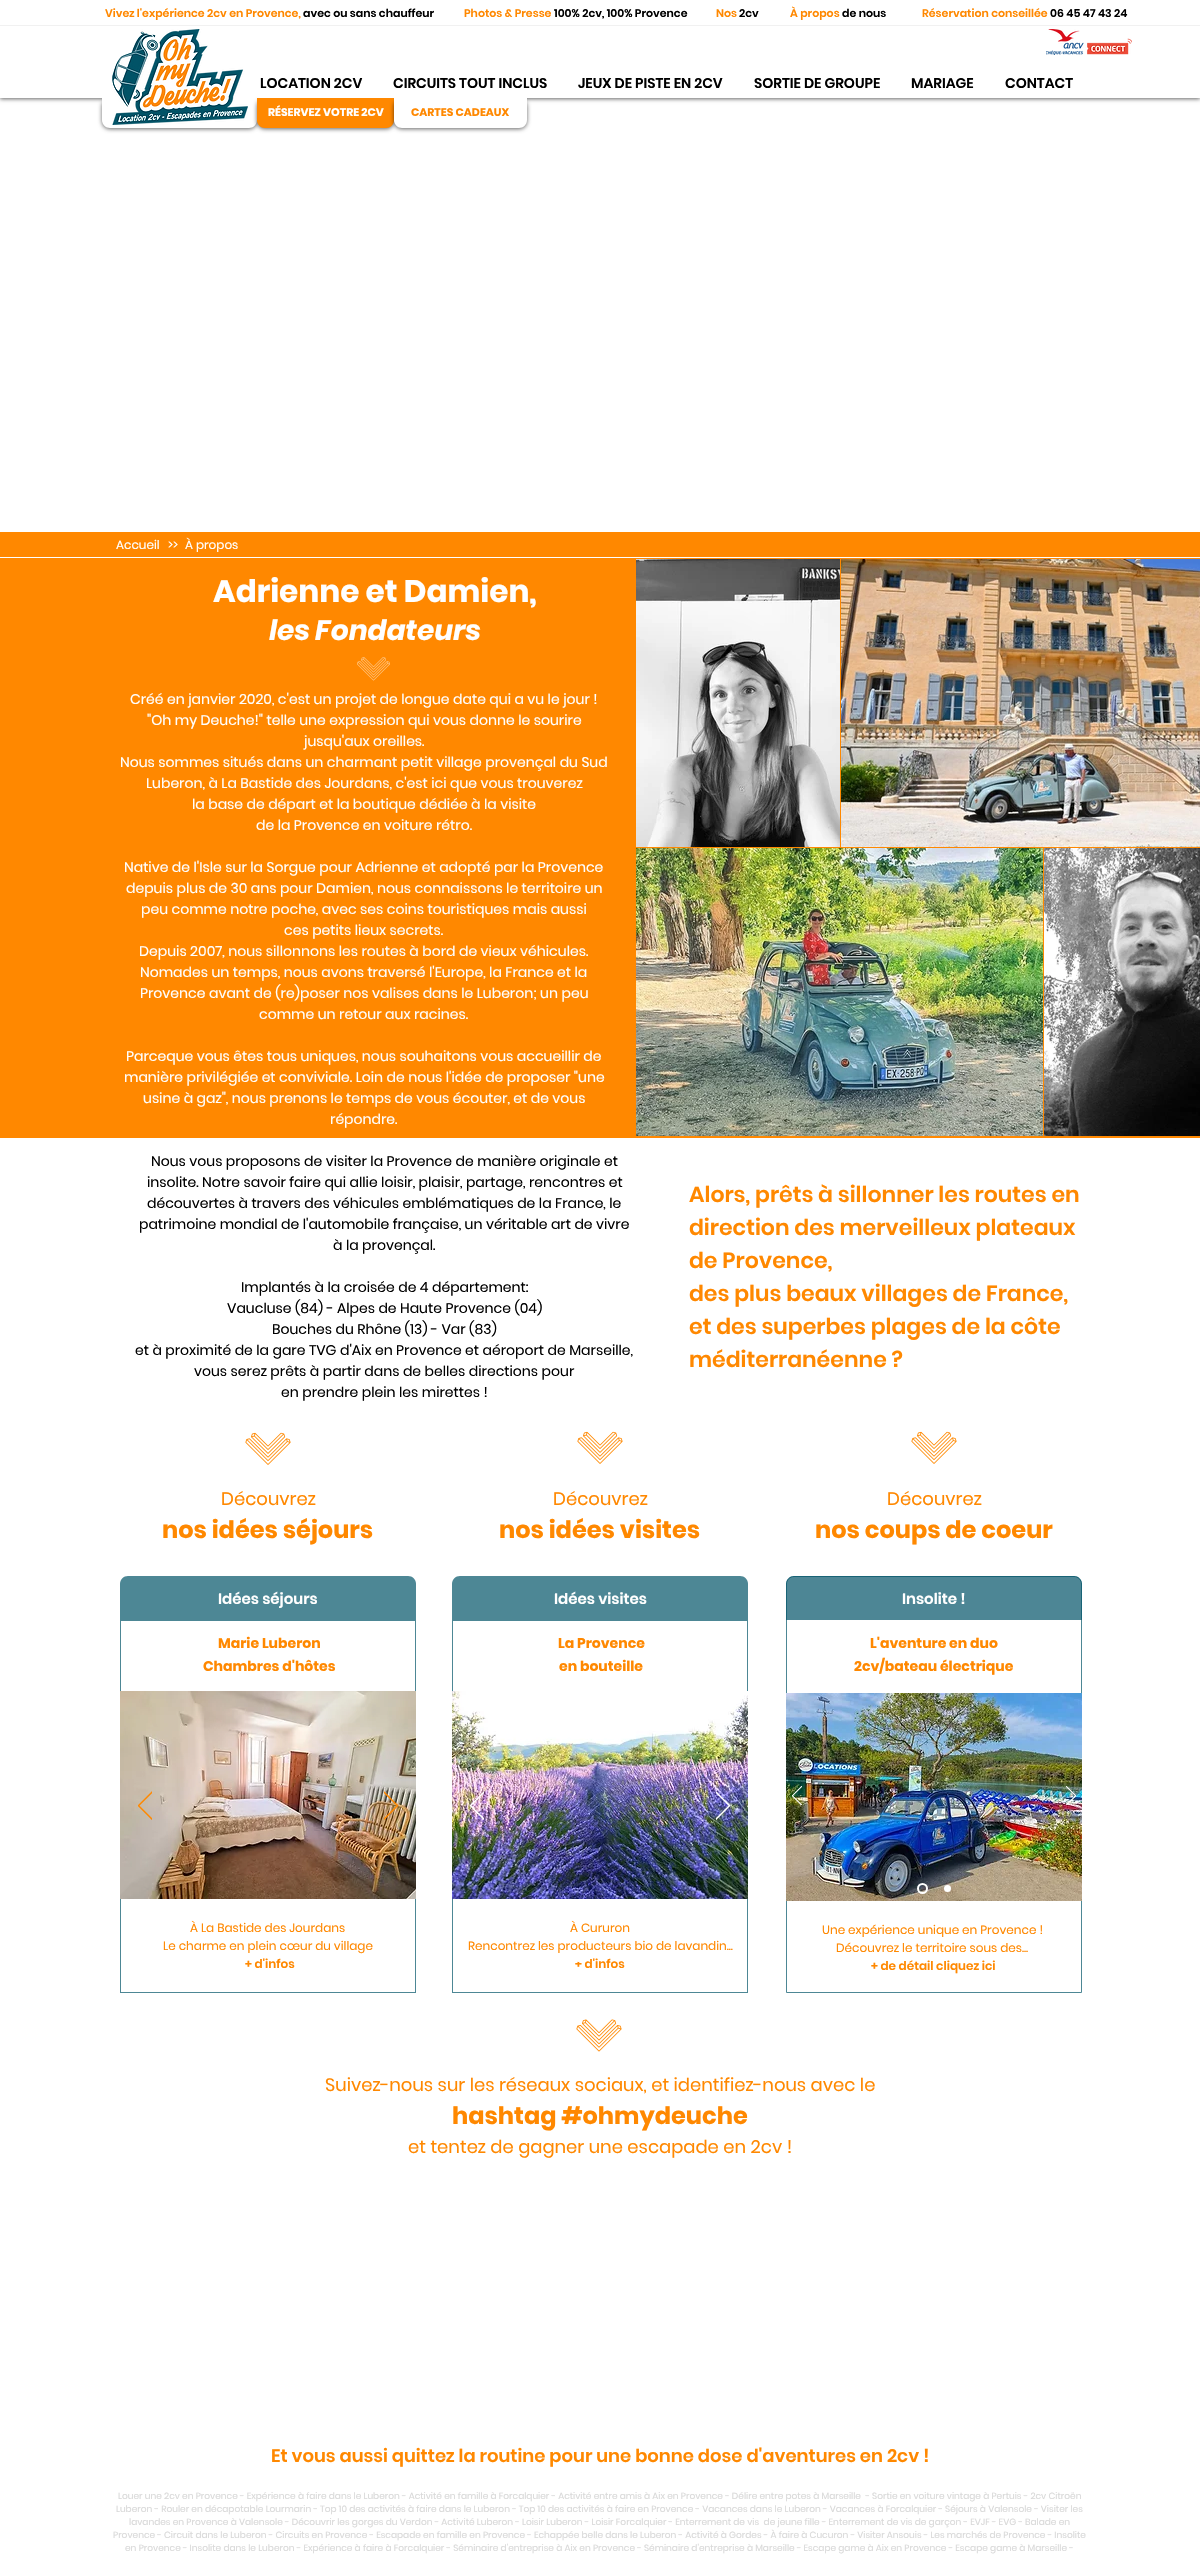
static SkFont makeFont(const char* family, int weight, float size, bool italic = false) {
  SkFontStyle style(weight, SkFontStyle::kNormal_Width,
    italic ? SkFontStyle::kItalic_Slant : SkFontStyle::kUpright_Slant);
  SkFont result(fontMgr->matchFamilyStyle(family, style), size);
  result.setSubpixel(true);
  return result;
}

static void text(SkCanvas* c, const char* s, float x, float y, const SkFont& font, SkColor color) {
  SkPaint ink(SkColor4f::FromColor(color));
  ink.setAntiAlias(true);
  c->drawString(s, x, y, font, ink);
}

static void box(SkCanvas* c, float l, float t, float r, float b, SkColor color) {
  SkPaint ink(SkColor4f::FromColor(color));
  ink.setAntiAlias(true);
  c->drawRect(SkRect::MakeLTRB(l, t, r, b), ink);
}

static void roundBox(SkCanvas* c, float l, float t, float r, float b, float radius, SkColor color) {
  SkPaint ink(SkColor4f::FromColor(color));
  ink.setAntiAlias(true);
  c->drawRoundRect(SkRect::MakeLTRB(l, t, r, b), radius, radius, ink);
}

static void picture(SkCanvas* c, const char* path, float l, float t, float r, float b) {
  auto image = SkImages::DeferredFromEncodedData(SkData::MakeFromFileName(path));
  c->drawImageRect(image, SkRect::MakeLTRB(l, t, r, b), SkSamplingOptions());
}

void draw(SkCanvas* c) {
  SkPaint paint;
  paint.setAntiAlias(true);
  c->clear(0xffffffff);
  paint.setColor(0x99000000);
  paint.setMaskFilter(SkMaskFilter::MakeBlur(kNormal_SkBlurStyle, 2));
  c->drawRoundRect(SkRect::MakeLTRB(102, 99, 257, 129), 8, 8, paint);
  paint.setMaskFilter(nullptr);
  paint.setColor(0xffffffff);
  c->drawPath(SkPathBuilder().moveTo(102, 98).lineTo(257, 98).lineTo(257, 120).cubicTo(257, 124.5f, 253.5f, 128, 249, 128).lineTo(110, 128).cubicTo(105.5f, 128, 102, 124.5f, 102, 120).close().detach(), paint);
  paint.setColor(0x99000000);
  paint.setMaskFilter(SkMaskFilter::MakeBlur(kNormal_SkBlurStyle, 2));
  c->drawRect(SkRect::MakeLTRB(0, 1, 1200, 99), paint);
  paint.setMaskFilter(nullptr);
  box(c, 0, 0, 1200, 98, 0xffffffff);
  SkFont face1 = makeFont("Poppins", 600, 11);
  text(c, "Vivez l'expérience 2cv en Provence,", 105, 17, face1, 0xffff8800);
  text(c, "avec ou sans chauffeur", 303, 17, face1, 0xff000000);
  text(c, "Photos & Presse", 464, 17, face1, 0xffff8800);
  text(c, "100% 2cv, 100% Provence", 554, 17, face1, 0xff000000);
  text(c, "Nos", 716, 17, face1, 0xffff8800);
  text(c, "2cv", 739, 17, face1, 0xff000000);
  text(c, "À propos", 790, 17, face1, 0xffff8800);
  text(c, "de nous", 842, 17, face1, 0xff000000);
  text(c, "Réservation conseillée", 922, 17, face1, 0xffff8800);
  text(c, "06 45 47 43 24", 1050, 17, face1, 0xff000000);
  box(c, 0, 25, 1200, 26, 0xfff1f1f1);
  box(c, 102, 98, 273, 118, 0xffffffff);
  picture(c, "img_01.png", 111, 29, 248, 125);
  picture(c, "img_02.png", 1046, 29, 1132, 55);
  paint.setMaskFilter(SkMaskFilter::MakeBlur(kNormal_SkBlurStyle, 2));
  c->drawRoundRect(SkRect::MakeLTRB(257, 99, 394, 129), 8, 8, paint);
  paint.setMaskFilter(nullptr);
  paint.setColor(0xffff8800);
  c->drawPath(SkPathBuilder().moveTo(257, 98).lineTo(394, 98).lineTo(394, 120).cubicTo(394, 124.5f, 390.5f, 128, 386, 128).lineTo(265, 128).cubicTo(260.5f, 128, 257, 124.5f, 257, 120).close().detach(), paint);
  paint.setColor(0x99000000);
  paint.setMaskFilter(SkMaskFilter::MakeBlur(kNormal_SkBlurStyle, 2));
  c->drawRoundRect(SkRect::MakeLTRB(394, 99, 527, 129), 8, 8, paint);
  paint.setMaskFilter(nullptr);
  roundBox(c, 245, 68, 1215, 98, 15, 0xffffffff);
  SkFont face2 = makeFont("Poppins", 600, 14);
  text(c, "LOCATION 2CV", 260, 88, face2, 0xff000000);
  text(c, "CIRCUITS TOUT INCLUS", 393, 88, face2, 0xff000000);
  text(c, "JEUX DE PISTE EN 2CV", 578, 88, face2, 0xff000000);
  text(c, "SORTIE DE GROUPE", 754, 88, face2, 0xff000000);
  text(c, "MARIAGE", 911, 88, face2, 0xff000000);
  text(c, "CONTACT", 1005, 88, face2, 0xff000000);
  SkFont face3 = makeFont("Poppins", 700, 11);
  text(c, "RÉSERVEZ VOTRE 2CV", 268, 116, face3, 0xffffffff);
  paint.setColor(0xffffffff);
  c->drawPath(SkPathBuilder().moveTo(394, 98).lineTo(527, 98).lineTo(527, 120).cubicTo(527, 124.5f, 523.5f, 128, 519, 128).lineTo(402, 128).cubicTo(397.5f, 128, 394, 124.5f, 394, 120).close().detach(), paint);
  text(c, "CARTES CADEAUX", 411, 116, face3, 0xffff8800);
  box(c, 0, 532, 1200, 1138, 0xffff8800);
  SkFont face4 = makeFont("Poppins", 400, 12);
  text(c, "Accueil", 116, 549, face4, 0xffffffff);
  text(c, ">>", 168, 549, face4, 0xffffffff);
  text(c, "À propos", 185, 549, face4, 0xffffffff);
  box(c, 0, 557, 1200, 558, 0xffffffff);
  SkFont face5 = makeFont("Poppins", 700, 31);
  text(c, "Adrienne et Damien,", 213, 602, face5, 0xffffffff);
  SkFont face6 = makeFont("Poppins", 700, 28, true);
  text(c, "les Fondateurs", 269, 640, face6, 0xffffffff);
  picture(c, "img_03.png", 636, 559, 840, 847);
  picture(c, "img_04.png", 841, 559, 1200, 847);
  picture(c, "img_05.png", 636, 848, 1043, 1136);
  picture(c, "img_06.png", 1044, 848, 1200, 1136);
  picture(c, "img_07.png", 357, 657, 390, 681);
  SkFont face7 = makeFont("Poppins", 400, 14);
  text(c, "Créé en janvier 2020, c'est un projet de longue date qui a vu le jour !", 130, 704, face7, 0xffffffff);
  text(c, "\"Oh my Deuche!\" telle une expression qui vous donne le sourire", 147, 725, face7, 0xffffffff);
  text(c, "jusqu'aux oreilles.", 304, 746, face7, 0xffffffff);
  text(c, "Nous sommes situés dans un charmant petit village provençal du Sud", 120, 767, face7, 0xffffffff);
  text(c, "Luberon, à La Bastide des Jourdans, c'est ici que vous trouverez", 146, 788, face7, 0xffffffff);
  text(c, "la base de départ et la boutique dédiée à la visite", 192, 809, face7, 0xffffffff);
  text(c, "de la Provence en voiture rétro.", 256, 830, face7, 0xffffffff);
  text(c, "Native de l'Isle sur la Sorgue pour Adrienne et adopté par la Provence", 124, 872, face7, 0xffffffff);
  text(c, "depuis plus de 30 ans pour Damien, nous connaissons le territoire un", 126, 893, face7, 0xffffffff);
  text(c, "peu comme notre poche, avec ses coins touristiques mais aussi", 141, 914, face7, 0xffffffff);
  text(c, "ces petits lieux secrets.", 284, 935, face7, 0xffffffff);
  text(c, "Depuis 2007, nous sillonnons les routes à bord de vieux véhicules.", 139, 956, face7, 0xffffffff);
  text(c, "Nomades un temps, nous avons traversé l'Europe, la France et la", 140, 977, face7, 0xffffffff);
  text(c, "Provence avant de (re)poser nos valises dans le Luberon; un peu", 140, 998, face7, 0xffffffff);
  text(c, "comme un retour aux racines.", 259, 1019, face7, 0xffffffff);
  text(c, "Parceque vous êtes tous uniques, nous souhaitons vous accueillir de", 126, 1061, face7, 0xffffffff);
  text(c, "manière privilégiée et conviviale. Loin de nous l'idée de proposer \"une", 124, 1082, face7, 0xffffffff);
  text(c, "usine à gaz\", nous prenons le temps de vous écouter, et de vous", 143, 1103, face7, 0xffffffff);
  text(c, "répondre.", 330, 1124, face7, 0xffffffff);
  text(c, "Nous vous proposons de visiter la Provence de manière originale et", 151, 1166, face7, 0xff000000);
  text(c, "insolite. Notre savoir faire qui allie loisir, plaisir, partage, rencontres et", 147, 1187, face7, 0xff000000);
  text(c, "découvertes à travers des véhicules emblématiques de la France, le", 147, 1208, face7, 0xff000000);
  text(c, "patrimoine mondial de l'automobile française, un véritable art de vivre", 139, 1229, face7, 0xff000000);
  text(c, "à la provençal.", 333, 1250, face7, 0xff000000);
  text(c, "Implantés à la croisée de 4 département:", 241, 1292, face7, 0xff000000);
  text(c, "Vaucluse (84) - Alpes de Haute Provence (04)", 227, 1313, face7, 0xff000000);
  text(c, "Bouches du Rhône (13) - Var (83)", 272, 1334, face7, 0xff000000);
  text(c, "et à proximité de la gare TVG d'Aix en Provence et aéroport de Marseille,", 135, 1355, face7, 0xff000000);
  text(c, "vous serez prêts à partir dans de belles directions pour", 194, 1376, face7, 0xff000000);
  text(c, "en prendre plein les mirettes !", 281, 1397, face7, 0xff000000);
  SkFont face8 = makeFont("Poppins", 600, 22);
  text(c, "Alors, prêts à sillonner les routes en", 689, 1202, face8, 0xffff8800);
  text(c, "direction des merveilleux plateaux", 689, 1235, face8, 0xffff8800);
  text(c, "de Provence,", 689, 1268, face8, 0xffff8800);
  text(c, "des plus beaux villages de France,", 689, 1301, face8, 0xffff8800);
  text(c, "et des superbes plages de la côte", 689, 1334, face8, 0xffff8800);
  text(c, "méditerranéenne ?", 689, 1367, face8, 0xffff8800);
  picture(c, "img_08.png", 245, 1432, 291, 1465);
  picture(c, "img_08.png", 577, 1431, 623, 1464);
  picture(c, "img_08.png", 911, 1431, 957, 1464);
  SkFont face9 = makeFont("Poppins", 400, 18);
  text(c, "Découvrez", 221, 1505, face9, 0xffff8800);
  SkFont face10 = makeFont("Poppins", 700, 24);
  text(c, "nos idées séjours", 162, 1538, face10, 0xffff8800);
  text(c, "Découvrez", 553, 1505, face9, 0xffff8800);
  text(c, "nos idées visites", 499, 1538, face10, 0xffff8800);
  text(c, "Découvrez", 887, 1505, face9, 0xffff8800);
  text(c, "nos coups de coeur", 815, 1538, face10, 0xffff8800);
  paint.setColor(0xff4d8795);
  c->drawPath(SkPathBuilder().moveTo(128, 1576).lineTo(408, 1576).cubicTo(412.5f, 1576, 416, 1579.5f, 416, 1584).lineTo(416, 1620).lineTo(120, 1620).lineTo(120, 1584).cubicTo(120, 1579.5f, 123.5f, 1576, 128, 1576).close().detach(), paint);
  SkFont face11 = makeFont("Poppins", 600, 15);
  text(c, "Idées séjours", 218, 1604, face11, 0xffffffff);
  c->drawPath(SkPathBuilder().moveTo(460, 1576).lineTo(740, 1576).cubicTo(744.5f, 1576, 748, 1579.5f, 748, 1584).lineTo(748, 1620).lineTo(452, 1620).lineTo(452, 1584).cubicTo(452, 1579.5f, 455.5f, 1576, 460, 1576).close().detach(), paint);
  text(c, "Idées visites", 554, 1604, face11, 0xffffffff);
  paint.setStyle(SkPaint::kStroke_Style);
  paint.setStrokeWidth(1);
  c->drawPath(SkPathBuilder().moveTo(794, 1576.5f).lineTo(1074, 1576.5f).cubicTo(1078, 1576.5f, 1081.5f, 1580, 1081.5f, 1584).lineTo(1081.5f, 1992.5f).lineTo(786.5f, 1992.5f).lineTo(786.5f, 1584).cubicTo(786.5f, 1580, 790, 1576.5f, 794, 1576.5f).close().detach(), paint);
  paint.setStyle(SkPaint::kFill_Style);
  paint.setColor(0xb3015368);
  c->drawPath(SkPathBuilder().moveTo(794, 1576).lineTo(1074, 1576).cubicTo(1078.5f, 1576, 1082, 1579.5f, 1082, 1584).lineTo(1082, 1620).lineTo(786, 1620).lineTo(786, 1584).cubicTo(786, 1579.5f, 789.5f, 1576, 794, 1576).close().detach(), paint);
  text(c, "Insolite !", 902, 1604, face11, 0xffffffff);
  paint.setStyle(SkPaint::kStroke_Style);
  paint.setColor(0xff4d8795);
  c->drawRect(SkRect::MakeLTRB(120.5f, 1620.5f, 415.5f, 1992.5f), paint);
  picture(c, "img_10.png", 120, 1691, 416, 1899);
  picture(c, "img_09.png", 138, 1791, 152, 1820);
  SkFont face12 = makeFont("Poppins", 700, 14);
  text(c, "Marie Luberon", 218, 1648, face12, 0xffff8800);
  text(c, "Chambres d'hôtes", 203, 1671, face12, 0xffff8800);
  text(c, "À La Bastide des Jourdans", 190, 1932, face4, 0xffff8800);
  text(c, "Le charme en plein cœur du village", 163, 1950, face4, 0xffff8800);
  SkFont face13 = makeFont("Poppins", 600, 12);
  text(c, "+ d'infos", 245, 1968, face13, 0xffff8800);
  picture(c, "img_11.png", 384, 1791, 399, 1820);
  c->drawRect(SkRect::MakeLTRB(452.5f, 1620.5f, 747.5f, 1992.5f), paint);
  text(c, "La Provence", 558, 1648, face12, 0xffff8800);
  text(c, "en bouteille", 559, 1671, face12, 0xffff8800);
  picture(c, "img_12.png", 452, 1691, 748, 1899);
  text(c, "À Cururon", 570, 1932, face4, 0xffff8800);
  text(c, "Rencontrez les producteurs bio de lavandin...", 468, 1950, face4, 0xffff8800);
  text(c, "+ d'infos", 575, 1968, face13, 0xffff8800);
  picture(c, "img_13.png", 470, 1791, 484, 1820);
  picture(c, "img_14.png", 716, 1791, 731, 1820);
  paint.setStrokeWidth(2);
  paint.setColor(0xffffffff);
  c->drawCircle(578.5f, 1957.5f, 3.5f, paint);
  text(c, "L'aventure en duo", 870, 1648, face12, 0xffff8800);
  text(c, "2cv/bateau électrique", 854, 1671, face12, 0xffff8800);
  picture(c, "img_15.png", 786, 1693, 1082, 1901);
  picture(c, "img_16.png", 792, 1786, 802, 1805);
  picture(c, "img_17.png", 1066, 1786, 1076, 1805);
  c->drawCircle(922.5f, 1888.5f, 4.5f, paint);
  paint.setStyle(SkPaint::kFill_Style);
  c->drawCircle(947.5f, 1888.5f, 3.5f, paint);
  text(c, "Une expérience unique en Provence !", 822, 1934, face4, 0xffff8800);
  text(c, "Découvrez le territoire sous des...", 836, 1952, face4, 0xffff8800);
  text(c, "+ de détail cliquez ici", 871, 1970, face13, 0xffff8800);
  picture(c, "img_18.png", 576, 2019, 622, 2052);
  text(c, "Suivez-nous sur les réseaux sociaux, et identifiez-nous avec le", 325, 2091, face9, 0xffff8800);
  text(c, "hashtag #ohmydeuche", 452, 2124, face10, 0xffff8800);
  text(c, "et tentez de gagner une escapade en 2cv !", 408, 2153, face9, 0xffff8800);
  SkFont face14 = makeFont("Poppins", 600, 18);
  text(c, "Et vous aussi quittez la routine pour une bonne dose d'aventures en 2cv !", 271, 2462, face14, 0xffff8800);
  SkFont face15 = makeFont("Poppins", 400, 9);
  text(c, "Louer une 2cv en Provence - Expérience à faire dans le Luberon - Activité en famille à Forcalquier - Activité entre amis à Aix en Provence - Délire entre potes à Marseille  - Sortie en voiture vintage à Pertuis - 2cv Citroën", 118, 2499, face15, 0xffd9d9d9);
  text(c, "Luberon - Rouler en décapotable Lourmarin - Top 10 des activités à faire dans le Luberon - Top 10 des activités à faire en Provence - Vacances dans le Luberon - Vacances à Forcalquier - Séjours à Valensole - Visiter les", 116, 2512, face15, 0xffd9d9d9);
  text(c, "lavandes en Provence à Valensole - Découvrir les gorges du Verdon - Activité Luberon - Loisir Luberon - Loisir Forcalquier - Enterrement de vis  de jeune fille - Enterrement de vis de garçon - EVJF - EVG - Balade en", 129, 2525, face15, 0xffd9d9d9);
  text(c, "Provence - Circuit dans le Luberon - Circuits en Provence - Escapade en famille en Provence - Echappée belle dans le Luberon - Activité à Gordes - À faire à Cucuron - Visiter Ansouis - Les marchés de Provence - Insolite", 113, 2538, face15, 0xffd9d9d9);
  text(c, "en Provence - Insolite dans le Luberon - Expérience à faire à Forcalquier - Séminaire d'entreprise à Aix en Provence - Séminaire d'entreprise à Marseille - Escape game à Aix en Provence - Escape game à Marseille -", 125, 2551, face15, 0xffd9d9d9);
}
